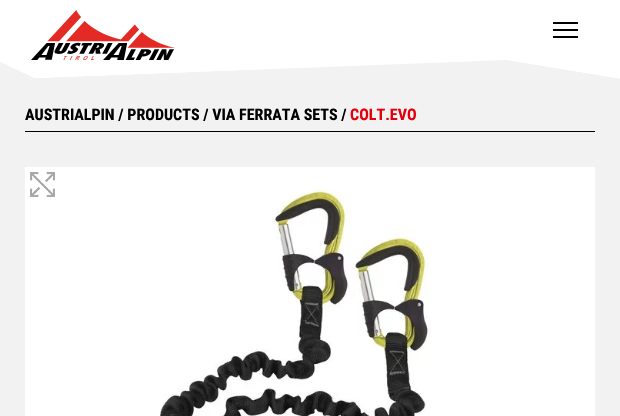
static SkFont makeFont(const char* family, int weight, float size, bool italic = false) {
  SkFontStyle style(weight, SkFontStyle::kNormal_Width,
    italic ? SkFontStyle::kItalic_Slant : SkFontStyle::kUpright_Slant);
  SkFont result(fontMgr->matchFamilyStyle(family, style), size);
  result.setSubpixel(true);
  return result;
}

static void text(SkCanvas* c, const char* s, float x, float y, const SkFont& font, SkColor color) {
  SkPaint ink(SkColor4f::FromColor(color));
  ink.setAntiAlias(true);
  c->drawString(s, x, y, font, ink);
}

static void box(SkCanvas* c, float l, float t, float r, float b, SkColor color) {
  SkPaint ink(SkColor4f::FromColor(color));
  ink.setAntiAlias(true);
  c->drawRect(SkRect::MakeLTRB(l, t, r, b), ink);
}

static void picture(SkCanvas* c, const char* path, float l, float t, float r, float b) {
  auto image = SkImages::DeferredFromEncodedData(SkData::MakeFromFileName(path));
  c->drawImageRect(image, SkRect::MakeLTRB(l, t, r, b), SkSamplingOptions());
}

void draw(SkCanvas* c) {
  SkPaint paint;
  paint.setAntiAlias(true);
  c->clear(0xfff3f2f2);
  box(c, 0, 0, 620, 60, 0xffffffff);
  picture(c, "img_01.png", 31, 10, 175, 60);
  box(c, 553, 22, 578, 24, 0xff000000);
  box(c, 553, 29, 578, 31, 0xff000000);
  box(c, 553, 36, 578, 38, 0xff000000);
  picture(c, "img_02.png", 0, 60, 620, 79);
  box(c, 25, 131, 595, 132, 0xff000000);
  SkFont face1 = makeFont("Roboto Condensed", 700, 16);
  text(c, "AUSTRIALPIN / PRODUCTS / VIA FERRATA SETS /", 25, 120, face1, 0xff000000);
  text(c, "COLT.EVO", 350, 120, face1, 0xffe3000b);
  box(c, 25, 167, 595, 416, 0xffffffff);
  picture(c, "img_03.png", 30, 172, 55, 197);
  picture(c, "img_04.png", 160, 189, 430, 416);
}
